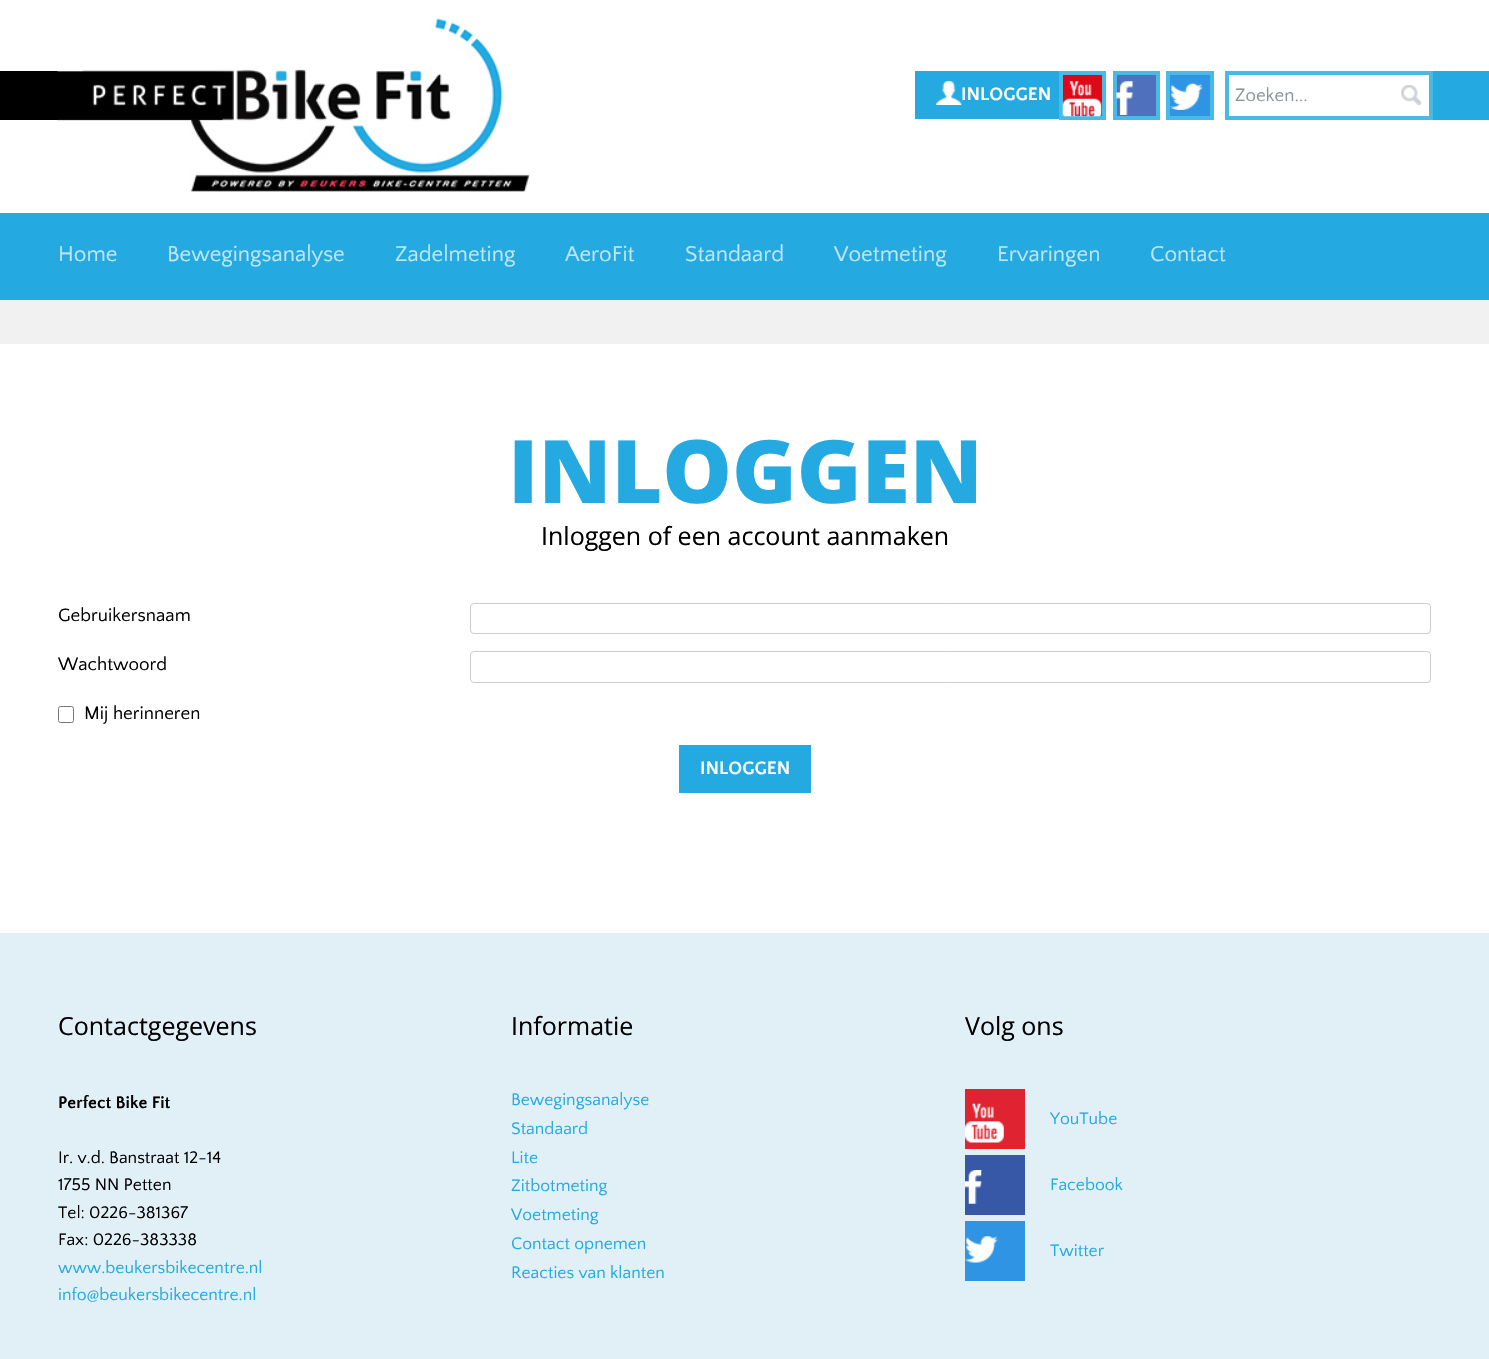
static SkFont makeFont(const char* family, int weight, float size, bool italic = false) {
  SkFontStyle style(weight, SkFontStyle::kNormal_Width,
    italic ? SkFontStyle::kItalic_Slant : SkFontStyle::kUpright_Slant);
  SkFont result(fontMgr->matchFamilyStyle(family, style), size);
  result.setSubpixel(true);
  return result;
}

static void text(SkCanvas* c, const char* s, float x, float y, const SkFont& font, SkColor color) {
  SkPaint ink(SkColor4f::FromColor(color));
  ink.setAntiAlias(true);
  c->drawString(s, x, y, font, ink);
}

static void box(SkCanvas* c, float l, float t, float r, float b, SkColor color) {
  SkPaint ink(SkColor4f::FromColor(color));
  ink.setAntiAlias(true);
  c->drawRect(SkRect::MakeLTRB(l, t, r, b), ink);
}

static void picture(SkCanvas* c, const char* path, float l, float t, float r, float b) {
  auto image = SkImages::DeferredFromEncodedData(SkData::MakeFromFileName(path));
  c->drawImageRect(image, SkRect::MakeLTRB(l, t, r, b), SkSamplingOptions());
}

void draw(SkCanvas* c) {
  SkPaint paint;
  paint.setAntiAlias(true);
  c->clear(0xffffffff);
  box(c, 0, 71, 58, 120, 0xff000000);
  picture(c, "img_01.png", 57, 18, 596, 192);
  box(c, 1433, 71, 1489, 120, 0xff25a9e1);
  box(c, 915, 71, 1059, 119, 0xff25a9e1);
  picture(c, "img_02.png", 936, 81, 962, 105);
  SkFont face1 = makeFont("Quattrocento Sans", 700, 18.75f);
  text(c, "INLOGGEN", 961, 100, face1, 0xffffffff);
  paint.setColor(0xffdd0918);
  c->drawRect(SkRect::MakeLTRB(1061, 73, 1104, 118), paint);
  paint.setStyle(SkPaint::kStroke_Style);
  paint.setStrokeWidth(4);
  paint.setColor(0xff48bae3);
  c->drawRect(SkRect::MakeLTRB(1061, 73, 1104, 118), paint);
  picture(c, "img_03.png", 1062, 81, 1102, 117);
  paint.setStyle(SkPaint::kFill_Style);
  paint.setColor(0xff4f70bd);
  c->drawRect(SkRect::MakeLTRB(1115, 73, 1158, 118), paint);
  paint.setStyle(SkPaint::kStroke_Style);
  paint.setColor(0xff48bae3);
  c->drawRect(SkRect::MakeLTRB(1115, 73, 1158, 118), paint);
  picture(c, "img_04.png", 1116, 81, 1133, 115);
  paint.setStyle(SkPaint::kFill_Style);
  paint.setColor(0xff2f94e4);
  c->drawRect(SkRect::MakeLTRB(1168, 73, 1212, 118), paint);
  paint.setStyle(SkPaint::kStroke_Style);
  paint.setColor(0xff48bae3);
  c->drawRect(SkRect::MakeLTRB(1168, 73, 1212, 118), paint);
  picture(c, "img_05.png", 1170, 83, 1203, 110);
  c->drawRect(SkRect::MakeLTRB(1227, 73, 1431, 118), paint);
  picture(c, "img_06.png", 1401, 85, 1422, 105);
  SkFont face2 = makeFont("Quattrocento Sans", 400, 18.75f);
  text(c, "Zoeken...", 1235, 101, face2, 0xff8d9298);
  box(c, 0, 213, 1489, 300, 0xff25a9e1);
  SkFont face3 = makeFont("Quattrocento Sans", 400, 22.5f);
  text(c, "Home", 58, 261, face3, 0xffbde7f8);
  text(c, "Bewegingsanalyse", 167, 261, face3, 0xffbde7f8);
  text(c, "Zadelmeting", 395, 261, face3, 0xffbde7f8);
  text(c, "AeroFit", 565, 261, face3, 0xffbde7f8);
  text(c, "Standaard", 685, 261, face3, 0xffbde7f8);
  text(c, "Voetmeting", 834, 261, face3, 0xffbde7f8);
  text(c, "Ervaringen", 997, 261, face3, 0xffbde7f8);
  text(c, "Contact", 1150, 261, face3, 0xffbde7f8);
  box(c, 0, 300, 1489, 344, 0xfff1f1f1);
  SkFont face4 = makeFont("Open Sans", 800, 87.5f);
  text(c, "INLOGGEN", 508, 503, face4, 0xff25a9e1);
  SkFont face5 = makeFont("Open Sans", 400, 25);
  text(c, "Inloggen of een account aanmaken", 541, 545, face5, 0xff000000);
  text(c, "Gebruikersnaam", 58, 621, face2, 0xff000000);
  paint.setStrokeWidth(1);
  paint.setColor(0xffcccccc);
  c->drawRoundRect(SkRect::MakeLTRB(470.5f, 603.5f, 1430.5f, 633.5f), 3.5f, 3.5f, paint);
  text(c, "Wachtwoord", 58, 670, face2, 0xff000000);
  c->drawRoundRect(SkRect::MakeLTRB(470.5f, 651.5f, 1430.5f, 682.5f), 3.5f, 3.5f, paint);
  paint.setColor(0xff767676);
  c->drawRoundRect(SkRect::MakeLTRB(58.5f, 706.5f, 73.5f, 722.5f), 2, 2, paint);
  text(c, "Mij herinneren", 84, 719, face2, 0xff000000);
  box(c, 679, 745, 811, 793, 0xff25a9e1);
  text(c, "INLOGGEN", 700, 774, face1, 0xffffffff);
  box(c, 0, 933, 1489, 1359, 0xffe1f0f7);
  text(c, "Contactgegevens", 58, 1035, face5, 0xff000000);
  SkFont face6 = makeFont("Quattrocento Sans", 700, 17.5f);
  text(c, "Perfect Bike Fit", 58, 1108, face6, 0xff000000);
  SkFont face7 = makeFont("Quattrocento Sans", 400, 17.5f);
  text(c, "Ir. v.d. Banstraat 12-14", 58, 1163, face7, 0xff000000);
  text(c, "1755 NN Petten", 58, 1190, face7, 0xff000000);
  text(c, "Tel: 0226-381367", 58, 1218, face7, 0xff000000);
  text(c, "Fax: 0226-383338", 58, 1245, face7, 0xff000000);
  text(c, "www.beukersbikecentre.nl", 58, 1273, face7, 0xff25a9e1);
  text(c, "info@beukersbikecentre.nl", 58, 1300, face7, 0xff25a9e1);
  text(c, "Informatie", 511, 1035, face5, 0xff000000);
  text(c, "Bewegingsanalyse", 511, 1105, face7, 0xff25a9e1);
  text(c, "Standaard", 511, 1134, face7, 0xff25a9e1);
  text(c, "Lite", 511, 1163, face7, 0xff25a9e1);
  text(c, "Zitbotmeting", 511, 1191, face7, 0xff25a9e1);
  text(c, "Voetmeting", 511, 1220, face7, 0xff25a9e1);
  text(c, "Contact opnemen", 511, 1249, face7, 0xff25a9e1);
  text(c, "Reacties van klanten", 511, 1278, face7, 0xff25a9e1);
  text(c, "Volg ons", 965, 1035, face5, 0xff000000);
  box(c, 965, 1089, 1025, 1149, 0xffe02330);
  picture(c, "img_07.png", 965, 1103, 1004, 1143);
  text(c, "YouTube", 1050, 1124, face7, 0xff25a9e1);
  box(c, 965, 1155, 1025, 1215, 0xff3758a6);
  picture(c, "img_08.png", 965, 1170, 982, 1204);
  text(c, "Facebook", 1050, 1190, face7, 0xff25a9e1);
  box(c, 965, 1221, 1025, 1281, 0xff2f94e4);
  picture(c, "img_09.png", 965, 1236, 998, 1263);
  text(c, "Twitter", 1050, 1256, face7, 0xff25a9e1);
}
